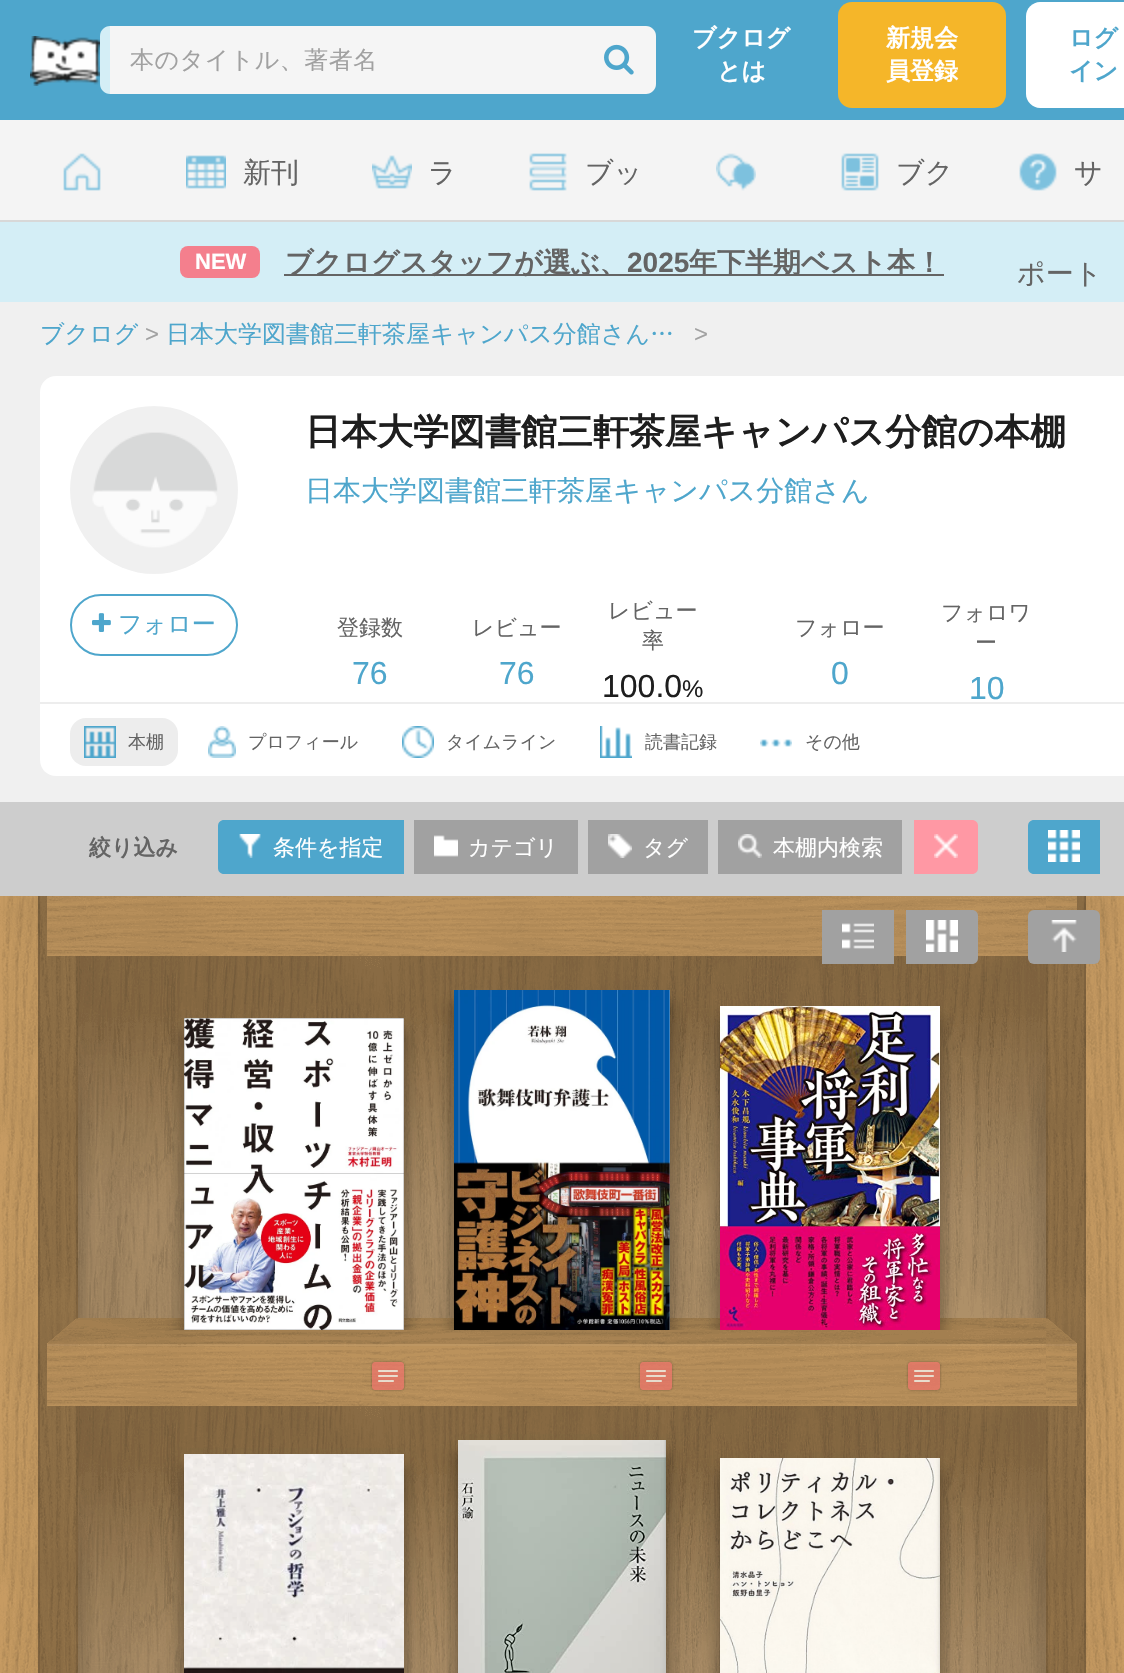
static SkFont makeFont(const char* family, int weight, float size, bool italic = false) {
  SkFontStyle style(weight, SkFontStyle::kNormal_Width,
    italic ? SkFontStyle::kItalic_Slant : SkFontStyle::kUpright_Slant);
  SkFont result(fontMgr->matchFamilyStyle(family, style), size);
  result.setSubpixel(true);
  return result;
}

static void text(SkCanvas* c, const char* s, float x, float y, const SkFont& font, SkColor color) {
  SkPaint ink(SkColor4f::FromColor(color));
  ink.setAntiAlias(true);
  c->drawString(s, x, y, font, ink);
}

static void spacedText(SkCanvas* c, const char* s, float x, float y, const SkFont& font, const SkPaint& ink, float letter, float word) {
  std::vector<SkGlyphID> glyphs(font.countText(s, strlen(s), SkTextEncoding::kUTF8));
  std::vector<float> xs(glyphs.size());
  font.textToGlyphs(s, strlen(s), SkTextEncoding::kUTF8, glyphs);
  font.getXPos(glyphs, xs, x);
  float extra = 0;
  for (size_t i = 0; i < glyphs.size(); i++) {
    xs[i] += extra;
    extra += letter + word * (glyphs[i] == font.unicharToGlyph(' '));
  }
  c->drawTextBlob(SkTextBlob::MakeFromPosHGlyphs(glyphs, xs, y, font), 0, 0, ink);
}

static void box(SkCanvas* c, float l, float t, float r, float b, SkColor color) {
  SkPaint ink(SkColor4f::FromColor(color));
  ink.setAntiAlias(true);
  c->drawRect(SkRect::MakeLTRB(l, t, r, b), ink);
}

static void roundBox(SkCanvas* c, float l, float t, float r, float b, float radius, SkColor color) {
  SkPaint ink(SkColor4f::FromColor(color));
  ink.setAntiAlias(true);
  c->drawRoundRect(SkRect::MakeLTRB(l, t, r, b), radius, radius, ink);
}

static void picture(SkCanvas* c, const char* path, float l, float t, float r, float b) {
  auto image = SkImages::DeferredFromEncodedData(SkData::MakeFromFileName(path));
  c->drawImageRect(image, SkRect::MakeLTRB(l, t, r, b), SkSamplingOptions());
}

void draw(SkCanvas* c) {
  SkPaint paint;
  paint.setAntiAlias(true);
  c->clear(0xff4ea6cc);
  picture(c, "img_01.png", 30, 36, 100, 86);
  paint.setColor(0xffd4eef6);
  c->drawPath(SkPathBuilder().moveTo(110, 26).lineTo(292, 26).lineTo(292, 94).lineTo(110, 94).cubicTo(104.5f, 94, 100, 89.5f, 100, 84).lineTo(100, 36).cubicTo(100, 30.5f, 104.5f, 26, 110, 26).close().detach(), paint);
  paint.setColor(0xfff5f5f5);
  c->drawPath(SkPathBuilder().moveTo(110, 26).lineTo(646, 26).cubicTo(651.5f, 26, 656, 30.5f, 656, 36).lineTo(656, 84).cubicTo(656, 89.5f, 651.5f, 94, 646, 94).lineTo(110, 94).close().detach(), paint);
  picture(c, "img_02.png", 604, 44, 634, 75);
  SkFont face1 = makeFont("WenQuanYi Zen Hei", 500, 24);
  paint.setColor(0xffa1a1a1);
  spacedText(c, "本のタイトル、著者名", 130, 68, face1, paint, 0.5f, 0);
  SkFont face2 = makeFont("WenQuanYi Zen Hei", 700, 24);
  text(c, "ブクログ", 692, 46, face2, 0xffffffff);
  text(c, "とは", 717, 79, face2, 0xffffffff);
  roundBox(c, 838, 2, 1006, 108, 14, 0xfff5b629);
  text(c, "新規会", 886, 46, face2, 0xffffffff);
  text(c, "員登録", 886, 79, face2, 0xffffffff);
  paint.setColor(0xffffffff);
  c->drawPath(SkPathBuilder().moveTo(1040, 2).lineTo(1124, 2).lineTo(1124, 108).lineTo(1040, 108).cubicTo(1032.5f, 108, 1026, 101.5f, 1026, 94).lineTo(1026, 16).cubicTo(1026, 8.5f, 1032.5f, 2, 1040, 2).close().detach(), paint);
  text(c, "ログ", 1069, 46, face2, 0xff4ea6cc);
  text(c, "イン", 1069, 79, face2, 0xff4ea6cc);
  box(c, 0, 120, 1124, 220, 0xfff4f4f4);
  box(c, 0, 220, 1124, 222, 0xffd8d8d8);
  picture(c, "img_03.png", 63, 153, 101, 191);
  picture(c, "img_04.png", 186, 155, 226, 189);
  SkFont face3 = makeFont("WenQuanYi Zen Hei", 500, 28);
  text(c, "新刊", 243, 182, face3, 0xff646464);
  picture(c, "img_05.png", 372, 155, 412, 189);
  text(c, "ラ", 428, 182, face3, 0xff646464);
  picture(c, "img_06.png", 529, 153, 567, 191);
  text(c, "ブッ", 585, 182, face3, 0xff646464);
  picture(c, "img_07.png", 716, 153, 756, 191);
  picture(c, "img_08.png", 841, 153, 879, 191);
  text(c, "ブク", 896, 182, face3, 0xff646464);
  picture(c, "img_09.png", 1019, 153, 1057, 191);
  text(c, "サ", 1074, 182, face3, 0xff646464);
  box(c, 0, 222, 1124, 302, 0xffd4eef6);
  text(c, "ポート", 1017, 283, face3, 0xff646464);
  roundBox(c, 180, 246, 260, 278, 8, 0xfff47f8d);
  SkFont face4 = makeFont("Liberation Sans", 700, 22);
  text(c, "NEW", 195, 269, face4, 0xffffffff);
  box(c, 284, 274, 944, 276, 0xff646464);
  SkFont face5 = makeFont("WenQuanYi Zen Hei", 700, 28);
  text(c, "ブクログスタッフが選ぶ、", 285, 272, face5, 0xff646464);
  SkFont face6 = makeFont("Liberation Sans", 700, 28);
  text(c, "2025", 627, 272, face6, 0xff646464);
  text(c, "年下半期ベスト本！", 689, 272, face5, 0xff646464);
  box(c, 0, 302, 1124, 802, 0xfff0f0f0);
  text(c, "ブクログ", 40, 342, face1, 0xff4ea6cc);
  SkFont face7 = makeFont("Liberation Sans", 400, 24);
  text(c, ">", 145, 342, face7, 0xffa1a1a1);
  text(c, "日本大学図書館三軒茶屋キャンパス分館さん…", 166, 342, face1, 0xff4ea6cc);
  text(c, ">", 694, 342, face7, 0xffa1a1a1);
  c->drawPath(SkPathBuilder().moveTo(56, 376).lineTo(1124, 376).lineTo(1124, 776).lineTo(56, 776).cubicTo(47, 776, 40, 769, 40, 760).lineTo(40, 392).cubicTo(40, 383, 47, 376, 56, 376).close().detach(), paint);
  picture(c, "img_10.png", 70, 406, 238, 574);
  paint.setStyle(SkPaint::kStroke_Style);
  paint.setStrokeWidth(2);
  paint.setColor(0xff4ea6cc);
  c->drawRoundRect(SkRect::MakeLTRB(71, 595, 237, 655), 30, 30, paint);
  picture(c, "img_11.png", 92, 613, 111, 632);
  text(c, "フォロー", 118, 632, face1, 0xff4ea6cc);
  SkFont face8 = makeFont("WenQuanYi Zen Hei", 700, 36);
  text(c, "日本大学図書館三軒茶屋キャンパス分館の本棚", 305, 444, face8, 0xff1e1e1e);
  text(c, "日本大学図書館三軒茶屋キャンパス分館さん", 305, 500, face3, 0xff4ea6cc);
  SkFont face9 = makeFont("WenQuanYi Zen Hei", 500, 22);
  text(c, "登録数", 337, 635, face9, 0xff646464);
  SkFont face10 = makeFont("Liberation Sans", 400, 32);
  text(c, "76", 352, 684, face10, 0xff4ea6cc);
  text(c, "レビュー", 472, 635, face9, 0xff646464);
  text(c, "76", 499, 684, face10, 0xff4ea6cc);
  text(c, "レビュー", 608, 618, face9, 0xff646464);
  text(c, "率", 642, 648, face9, 0xff646464);
  text(c, "100.0", 602, 697, face10, 0xff1e1e1e);
  text(c, "%", 682, 697, face7, 0xff1e1e1e);
  text(c, "フォロー", 795, 635, face9, 0xff646464);
  text(c, "0", 831, 684, face10, 0xff4ea6cc);
  text(c, "フォロワ", 941, 620, face9, 0xff646464);
  text(c, "ー", 975, 650, face9, 0xff646464);
  text(c, "10", 969, 699, face10, 0xff4ea6cc);
  box(c, 40, 702, 1124, 704, 0xffededed);
  roundBox(c, 70, 718, 178, 766, 16, 0xffededed);
  picture(c, "img_12.png", 84, 726, 116, 758);
  SkFont face11 = makeFont("WenQuanYi Zen Hei", 500, 18);
  text(c, "本棚", 128, 748, face11, 0xff646464);
  picture(c, "img_13.png", 208, 726, 236, 758);
  text(c, "プロフィール", 248, 748, face11, 0xff646464);
  picture(c, "img_14.png", 402, 726, 434, 758);
  text(c, "タイムライン", 446, 748, face11, 0xff646464);
  picture(c, "img_15.png", 600, 726, 632, 758);
  text(c, "読書記録", 645, 748, face11, 0xff646464);
  picture(c, "img_16.png", 760, 739, 792, 747);
  text(c, "その他", 805, 748, face11, 0xff646464);
  box(c, 0, 802, 1124, 896, 0xffcdcdcd);
  SkFont face12 = makeFont("WenQuanYi Zen Hei", 700, 22);
  text(c, "絞り込み", 89, 855, face12, 0xff646464);
  paint.setStyle(SkPaint::kFill_Style);
  c->drawPath(SkPathBuilder().moveTo(224, 820).lineTo(404, 820).lineTo(404, 874).lineTo(224, 874).cubicTo(220.5f, 874, 218, 871.5f, 218, 868).lineTo(218, 826).cubicTo(218, 822.5f, 220.5f, 820, 224, 820).close().detach(), paint);
  picture(c, "img_17.png", 239, 834, 261, 858);
  text(c, "条件を指定", 273, 855, face9, 0xffffffff);
  box(c, 414, 820, 578, 874, 0xffa1a1a1);
  picture(c, "img_18.png", 434, 835, 458, 857);
  text(c, "カテゴリ", 468, 855, face9, 0xffffffff);
  box(c, 588, 820, 708, 874, 0xffa1a1a1);
  picture(c, "img_19.png", 608, 834, 632, 858);
  text(c, "タグ", 643, 855, face9, 0xffffffff);
  box(c, 718, 820, 902, 874, 0xffa1a1a1);
  picture(c, "img_20.png", 738, 834, 762, 858);
  text(c, "本棚内検索", 773, 855, face9, 0xffffffff);
  paint.setColor(0xffff98a4);
  c->drawPath(SkPathBuilder().moveTo(914, 820).lineTo(972, 820).cubicTo(975.5f, 820, 978, 822.5f, 978, 826).lineTo(978, 868).cubicTo(978, 871.5f, 975.5f, 874, 972, 874).lineTo(914, 874).close().detach(), paint);
  picture(c, "img_21.png", 934, 834, 958, 858);
  paint.setColor(0xff4ea6cc);
  c->drawPath(SkPathBuilder().moveTo(1034, 820).lineTo(1100, 820).lineTo(1100, 874).lineTo(1034, 874).cubicTo(1030.5f, 874, 1028, 871.5f, 1028, 868).lineTo(1028, 826).cubicTo(1028, 822.5f, 1030.5f, 820, 1034, 820).close().detach(), paint);
  picture(c, "img_22.png", 1048, 830, 1080, 862);
  box(c, 0, 896, 1124, 1673, 0xffe8b572);
  picture(c, "img_26.png", 0, 896, 1124, 1673);
  picture(c, "img_27.png", 78, 896, 1046, 1673);
  box(c, 822, 910, 894, 964, 0xffa1a1a1);
  picture(c, "img_23.png", 842, 923, 874, 949);
  paint.setColor(0xffa1a1a1);
  c->drawPath(SkPathBuilder().moveTo(906, 910).lineTo(972, 910).cubicTo(975.5f, 910, 978, 912.5f, 978, 916).lineTo(978, 958).cubicTo(978, 961.5f, 975.5f, 964, 972, 964).lineTo(906, 964).close().detach(), paint);
  picture(c, "img_24.png", 926, 920, 958, 952);
  roundBox(c, 1028, 910, 1100, 964, 6, 0xffa1a1a1);
  picture(c, "img_25.png", 1051, 920, 1077, 952);
  c->save();
  c->clipRect(SkRect::MakeLTRB(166, 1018, 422, 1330));
  paint.setColor(0x33000000);
  paint.setMaskFilter(SkMaskFilter::MakeBlur(kNormal_SkBlurStyle, 6));
  c->drawRect(SkRect::MakeLTRB(178, 1030, 398, 1342), paint);
  paint.setMaskFilter(nullptr);
  paint.setMaskFilter(SkMaskFilter::MakeBlur(kNormal_SkBlurStyle, 6));
  c->drawRect(SkRect::MakeLTRB(190, 1030, 410, 1342), paint);
  paint.setMaskFilter(nullptr);
  c->restore();
  picture(c, "img_28.png", 184, 1018, 404, 1330);
  picture(c, "img_29.png", 370, 1360, 406, 1392);
  c->save();
  c->clipRect(SkRect::MakeLTRB(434, 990, 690, 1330));
  paint.setMaskFilter(SkMaskFilter::MakeBlur(kNormal_SkBlurStyle, 6));
  c->drawRect(SkRect::MakeLTRB(448, 1002, 664, 1342), paint);
  paint.setMaskFilter(nullptr);
  paint.setMaskFilter(SkMaskFilter::MakeBlur(kNormal_SkBlurStyle, 6));
  c->drawRect(SkRect::MakeLTRB(460, 1002, 676, 1342), paint);
  paint.setMaskFilter(nullptr);
  c->restore();
  picture(c, "img_30.png", 454, 990, 670, 1330);
  picture(c, "img_31.png", 638, 1360, 674, 1392);
  c->save();
  c->clipRect(SkRect::MakeLTRB(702, 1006, 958, 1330));
  paint.setMaskFilter(SkMaskFilter::MakeBlur(kNormal_SkBlurStyle, 6));
  c->drawRect(SkRect::MakeLTRB(714, 1018, 934, 1342), paint);
  paint.setMaskFilter(nullptr);
  paint.setMaskFilter(SkMaskFilter::MakeBlur(kNormal_SkBlurStyle, 6));
  c->drawRect(SkRect::MakeLTRB(726, 1018, 946, 1342), paint);
  paint.setMaskFilter(nullptr);
  c->restore();
  picture(c, "img_32.png", 720, 1006, 940, 1330);
  picture(c, "img_33.png", 906, 1360, 942, 1392);
  paint.setMaskFilter(SkMaskFilter::MakeBlur(kNormal_SkBlurStyle, 6));
  c->drawRect(SkRect::MakeLTRB(178, 1466, 398, 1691), paint);
  paint.setMaskFilter(nullptr);
  paint.setMaskFilter(SkMaskFilter::MakeBlur(kNormal_SkBlurStyle, 6));
  c->drawRect(SkRect::MakeLTRB(190, 1466, 410, 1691), paint);
  paint.setMaskFilter(nullptr);
  picture(c, "img_34.png", 184, 1454, 404, 1673);
  paint.setMaskFilter(SkMaskFilter::MakeBlur(kNormal_SkBlurStyle, 6));
  c->drawRect(SkRect::MakeLTRB(452, 1452, 660, 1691), paint);
  paint.setMaskFilter(nullptr);
  paint.setMaskFilter(SkMaskFilter::MakeBlur(kNormal_SkBlurStyle, 6));
  c->drawRect(SkRect::MakeLTRB(464, 1452, 672, 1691), paint);
  paint.setMaskFilter(nullptr);
  picture(c, "img_35.png", 458, 1440, 666, 1673);
  paint.setMaskFilter(SkMaskFilter::MakeBlur(kNormal_SkBlurStyle, 6));
  c->drawRect(SkRect::MakeLTRB(714, 1470, 934, 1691), paint);
  paint.setMaskFilter(nullptr);
  paint.setMaskFilter(SkMaskFilter::MakeBlur(kNormal_SkBlurStyle, 6));
  c->drawRect(SkRect::MakeLTRB(726, 1470, 946, 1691), paint);
  paint.setMaskFilter(nullptr);
  picture(c, "img_36.png", 720, 1458, 940, 1673);
}
